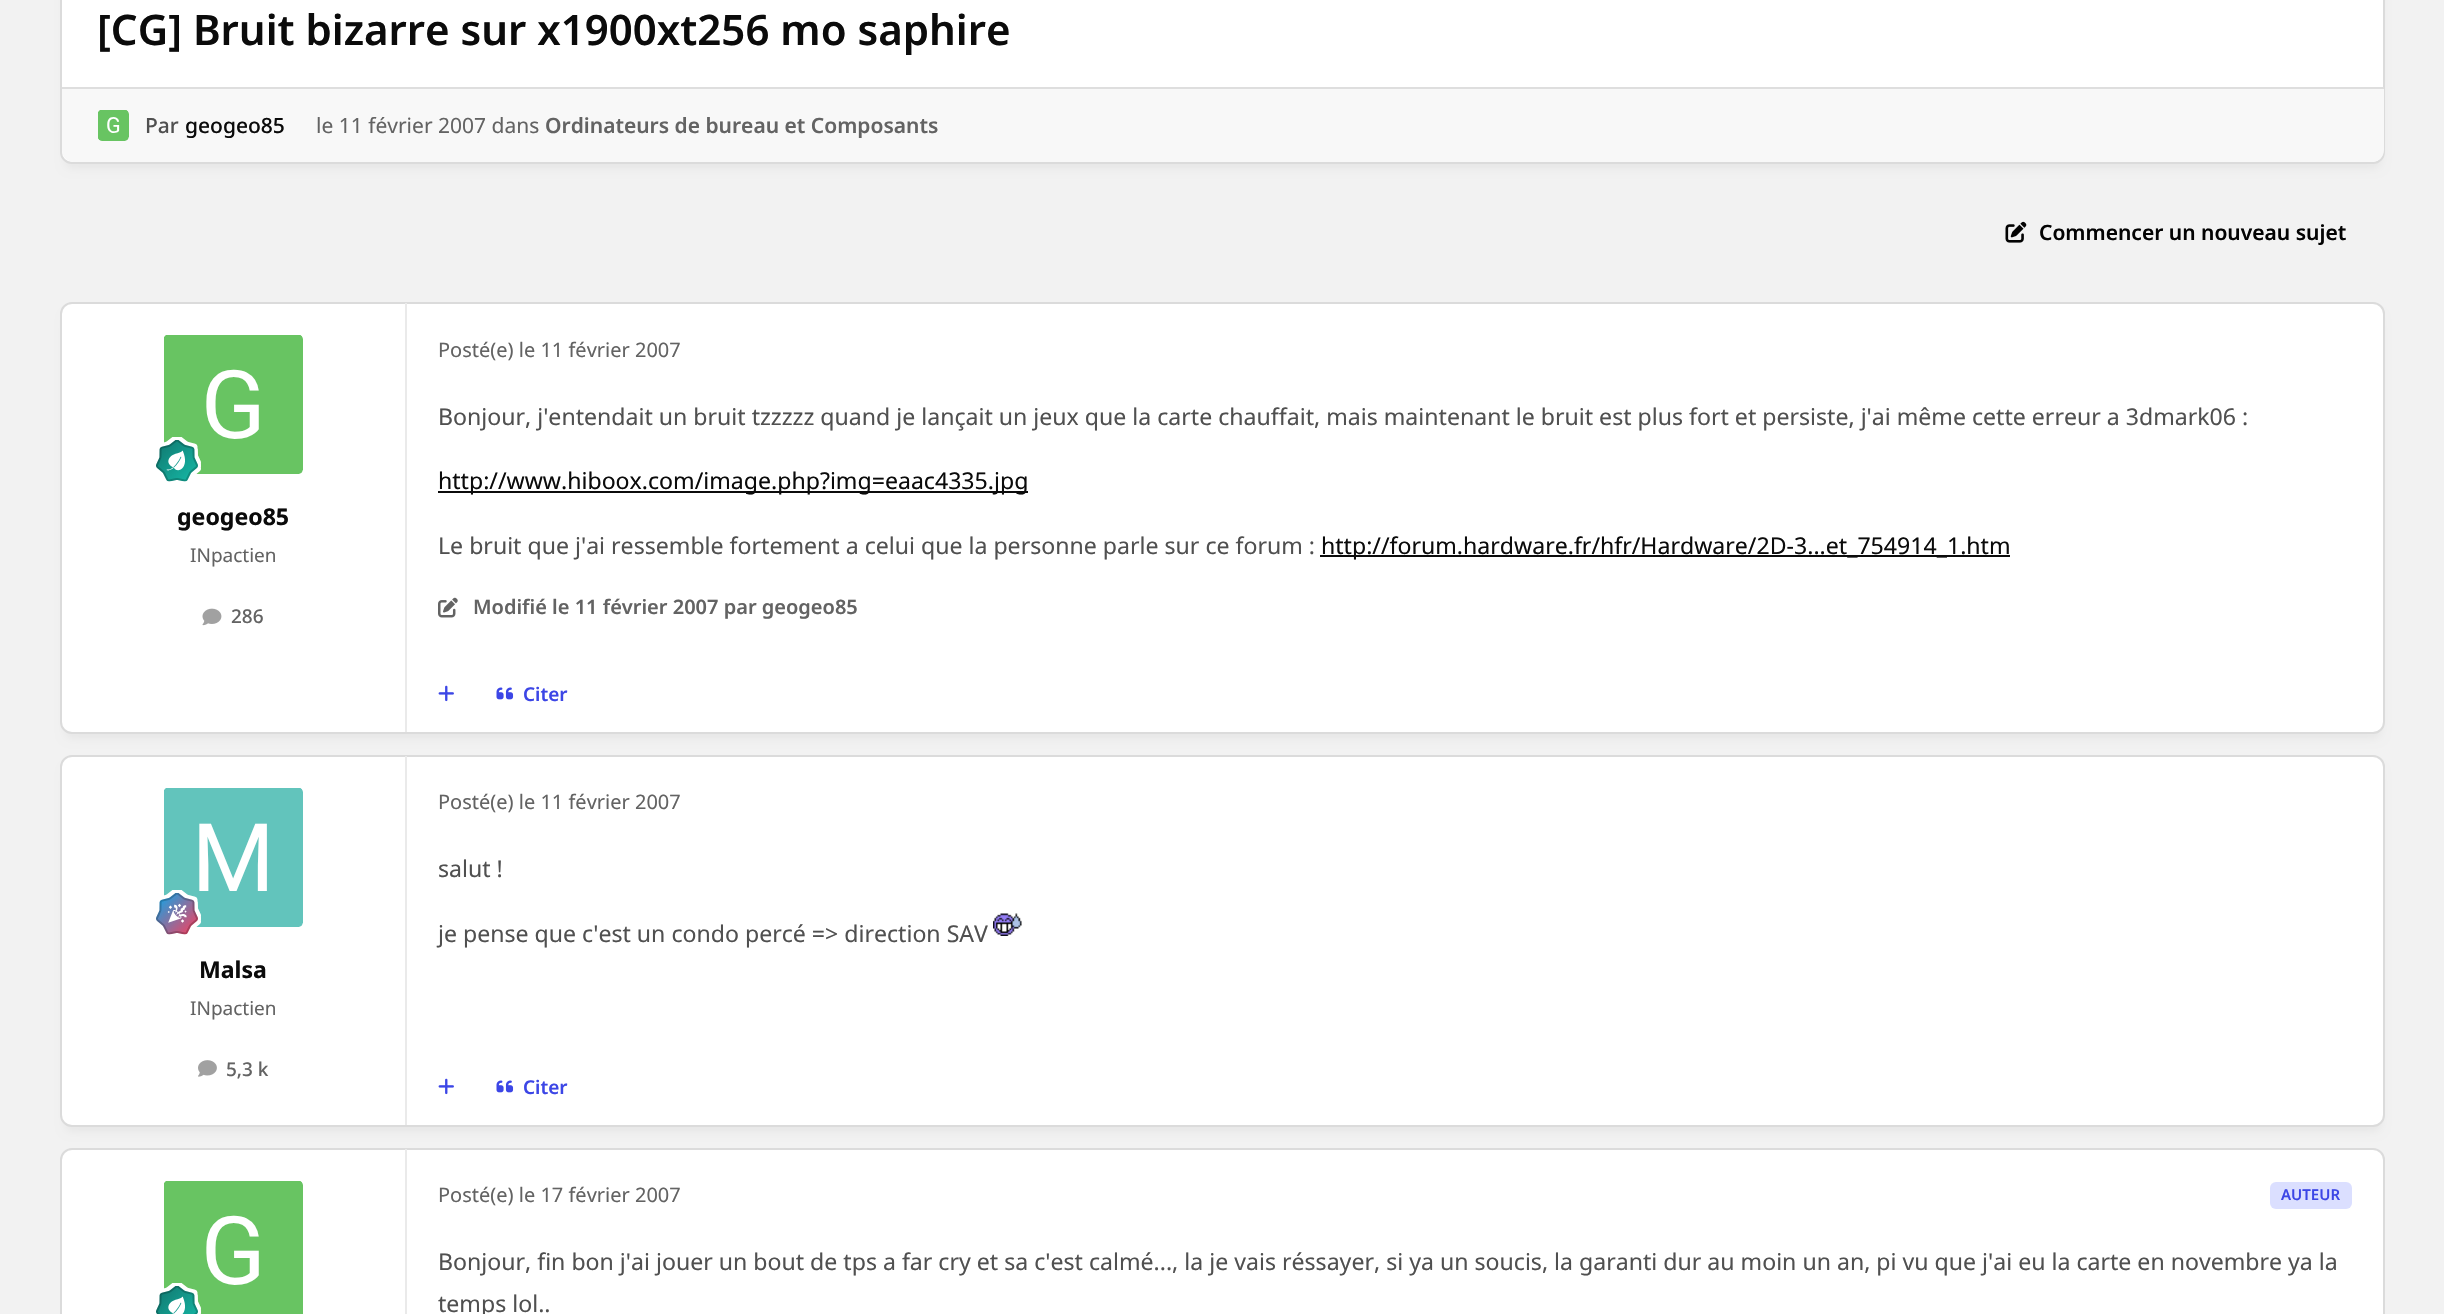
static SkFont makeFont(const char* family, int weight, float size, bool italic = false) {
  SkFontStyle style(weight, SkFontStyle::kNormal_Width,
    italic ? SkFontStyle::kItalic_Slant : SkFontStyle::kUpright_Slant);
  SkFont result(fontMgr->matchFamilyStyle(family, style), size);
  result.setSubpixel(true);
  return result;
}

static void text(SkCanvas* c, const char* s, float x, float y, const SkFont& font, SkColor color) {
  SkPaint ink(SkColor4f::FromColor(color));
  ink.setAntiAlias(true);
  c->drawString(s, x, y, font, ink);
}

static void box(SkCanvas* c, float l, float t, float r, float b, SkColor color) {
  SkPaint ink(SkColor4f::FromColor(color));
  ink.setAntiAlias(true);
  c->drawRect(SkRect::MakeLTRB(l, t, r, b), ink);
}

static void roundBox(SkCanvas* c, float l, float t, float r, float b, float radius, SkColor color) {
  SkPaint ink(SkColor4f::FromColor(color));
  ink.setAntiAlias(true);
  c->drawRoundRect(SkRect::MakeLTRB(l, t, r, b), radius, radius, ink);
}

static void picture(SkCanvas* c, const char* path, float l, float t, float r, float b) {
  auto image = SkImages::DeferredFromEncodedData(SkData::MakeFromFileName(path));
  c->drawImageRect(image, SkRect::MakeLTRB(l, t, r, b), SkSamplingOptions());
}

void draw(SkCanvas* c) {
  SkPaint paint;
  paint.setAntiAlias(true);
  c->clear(0xfff2f2f2);
  paint.setColor(0x0d030303);
  paint.setMaskFilter(SkMaskFilter::MakeBlur(kNormal_SkBlurStyle, 5));
  c->drawRoundRect(SkRect::MakeLTRB(65, -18, 2381, 168), 8, 8, paint);
  paint.setMaskFilter(nullptr);
  paint.setColor(0xffffffff);
  c->drawRoundRect(SkRect::MakeLTRB(61, -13, 2384, 163), 11, 11, paint);
  paint.setStyle(SkPaint::kStroke_Style);
  paint.setStrokeWidth(2);
  paint.setColor(0xffdbdbdb);
  c->drawRoundRect(SkRect::MakeLTRB(61, -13, 2384, 163), 11, 11, paint);
  SkFont face1 = makeFont("Noto Sans", 600, 42);
  text(c, "[CG] Bruit bizarre sur x1900xt256 mo saphire", 97, 45, face1, 0xff0b0b0b);
  paint.setStyle(SkPaint::kFill_Style);
  paint.setColor(0xfff8f8f8);
  c->drawPath(SkPathBuilder().moveTo(62, 87).lineTo(2384, 87).lineTo(2384, 150).cubicTo(2384, 156.5f, 2378.5f, 162, 2372, 162).lineTo(74, 162).cubicTo(67.5f, 162, 62, 156.5f, 62, 150).close().detach(), paint);
  box(c, 62, 87, 2384, 89, 0xffdedede);
  picture(c, "img_01.png", 98, 110, 129, 141);
  SkFont face2 = makeFont("Noto Sans", 500, 21);
  text(c, "Par", 145, 133, face2, 0xff505050);
  text(c, "geogeo85", 185, 133, face2, 0xff0b0b0b);
  SkFont face3 = makeFont("Noto Sans", 400, 21);
  text(c, "le 11 février 2007 dans", 316, 133, face3, 0xff636363);
  SkFont face4 = makeFont("Noto Sans", 600, 21);
  text(c, "Ordinateurs de bureau et Composants", 545, 133, face4, 0xff636363);
  picture(c, "img_02.png", 2005, 221, 2027, 243);
  text(c, "Commencer un nouveau sujet", 2039, 240, face4, 0xff030303);
  paint.setColor(0x0d030303);
  paint.setMaskFilter(SkMaskFilter::MakeBlur(kNormal_SkBlurStyle, 5));
  c->drawRoundRect(SkRect::MakeLTRB(65, 315, 2381, 738), 8, 8, paint);
  paint.setMaskFilter(nullptr);
  paint.setColor(0xffffffff);
  c->drawRoundRect(SkRect::MakeLTRB(61, 303, 2384, 733), 11, 11, paint);
  paint.setStyle(SkPaint::kStroke_Style);
  paint.setColor(0xffdbdbdb);
  c->drawRoundRect(SkRect::MakeLTRB(61, 303, 2384, 733), 11, 11, paint);
  box(c, 405, 303, 407, 732, 0xffeaeaea);
  picture(c, "img_03.png", 164, 335, 303, 474);
  picture(c, "img_04.png", 156, 437, 201, 482);
  SkFont face5 = makeFont("Noto Sans", 700, 23.1f);
  text(c, "geogeo85", 177, 525, face5, 0xff0b0b0b);
  SkFont face6 = makeFont("Noto Sans", 400, 19);
  text(c, "INpactien", 190, 562, face6, 0xff636363);
  picture(c, "img_05.png", 202, 608, 222, 626);
  SkFont face7 = makeFont("Noto Sans", 500, 19);
  text(c, "286", 231, 623, face7, 0xff636363);
  SkFont face8 = makeFont("Noto Sans", 400, 20);
  text(c, "Posté(e) le 11 février 2007", 438, 357, face8, 0xff636363);
  SkFont face9 = makeFont("Noto Sans", 400, 23.1f);
  text(c, "Bonjour, j'entendait un bruit tzzzzz quand je lançait un jeux que la carte chauffait, mais maintenant le bruit est plus fort et persiste, j'ai même cette erreur a 3dmark06 :", 438, 425, face9, 0xff505050);
  box(c, 438, 491, 1028, 493, 0xff0b0b0b);
  text(c, "http://www.hiboox.com/image.php?img=eaac4335.jpg", 438, 489, face9, 0xff0b0b0b);
  text(c, "Le bruit que j'ai ressemble fortement a celui que la personne parle sur ce forum :", 438, 554, face9, 0xff505050);
  box(c, 1320, 555, 2010, 557, 0xff0b0b0b);
  text(c, "http://forum.hardware.fr/hfr/Hardware/2D-3...et_754914_1.htm", 1321, 554, face9, 0xff0b0b0b);
  picture(c, "img_06.png", 438, 597, 458, 618);
  SkFont face10 = makeFont("Noto Sans", 600, 20);
  text(c, "Modifié le 11 février 2007 par geogeo85", 473, 614, face10, 0xff636363);
  picture(c, "img_07.png", 438, 685, 454, 702);
  picture(c, "img_08.png", 496, 687, 514, 700);
  SkFont face11 = makeFont("Noto Sans", 600, 19);
  text(c, "Citer", 523, 701, face11, 0xff3c46e6);
  paint.setStyle(SkPaint::kFill_Style);
  paint.setColor(0x0d030303);
  paint.setMaskFilter(SkMaskFilter::MakeBlur(kNormal_SkBlurStyle, 5));
  c->drawRoundRect(SkRect::MakeLTRB(65, 768, 2381, 1131), 8, 8, paint);
  paint.setMaskFilter(nullptr);
  paint.setColor(0xffffffff);
  c->drawRoundRect(SkRect::MakeLTRB(61, 756, 2384, 1126), 11, 11, paint);
  paint.setStyle(SkPaint::kStroke_Style);
  paint.setColor(0xffdbdbdb);
  c->drawRoundRect(SkRect::MakeLTRB(61, 756, 2384, 1126), 11, 11, paint);
  box(c, 405, 756, 407, 1125, 0xffeaeaea);
  picture(c, "img_09.png", 164, 788, 303, 927);
  picture(c, "img_10.png", 156, 890, 201, 935);
  text(c, "Malsa", 199, 978, face5, 0xff0b0b0b);
  text(c, "INpactien", 190, 1015, face6, 0xff636363);
  picture(c, "img_11.png", 198, 1060, 217, 1077);
  text(c, "5,3 k", 226, 1076, face7, 0xff636363);
  text(c, "Posté(e) le 11 février 2007", 438, 809, face8, 0xff636363);
  text(c, "salut !", 438, 877, face9, 0xff505050);
  text(c, "je pense que c'est un condo percé => direction SAV", 438, 942, face9, 0xff505050);
  picture(c, "img_12.png", 993, 913, 1022, 936);
  picture(c, "img_07.png", 438, 1078, 454, 1095);
  picture(c, "img_08.png", 496, 1080, 514, 1093);
  text(c, "Citer", 523, 1094, face11, 0xff3c46e6);
  paint.setStyle(SkPaint::kFill_Style);
  paint.setColor(0xffffffff);
  c->drawRoundRect(SkRect::MakeLTRB(61, 1149, 2384, 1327), 11, 11, paint);
  paint.setStyle(SkPaint::kStroke_Style);
  paint.setColor(0xffdbdbdb);
  c->drawRoundRect(SkRect::MakeLTRB(61, 1149, 2384, 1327), 11, 11, paint);
  box(c, 405, 1149, 407, 1314, 0xffeaeaea);
  picture(c, "img_13.png", 164, 1181, 303, 1314);
  picture(c, "img_14.png", 156, 1283, 201, 1314);
  text(c, "Posté(e) le 17 février 2007", 438, 1202, face8, 0xff636363);
  roundBox(c, 2270, 1182, 2352, 1209, 6, 0xffdbdfff);
  SkFont face12 = makeFont("Noto Sans", 600, 15);
  text(c, "AUTEUR", 2281, 1200, face12, 0xff3c46e6);
  text(c, "Bonjour, fin bon j'ai jouer un bout de tps a far cry et sa c'est calmé..., la je vais réssayer, si ya un soucis, la garanti dur au moin un an, pi vu que j'ai eu la carte en novembre ya la", 438, 1270, face9, 0xff505050);
  text(c, "temps lol..", 438, 1312, face9, 0xff505050);
}
